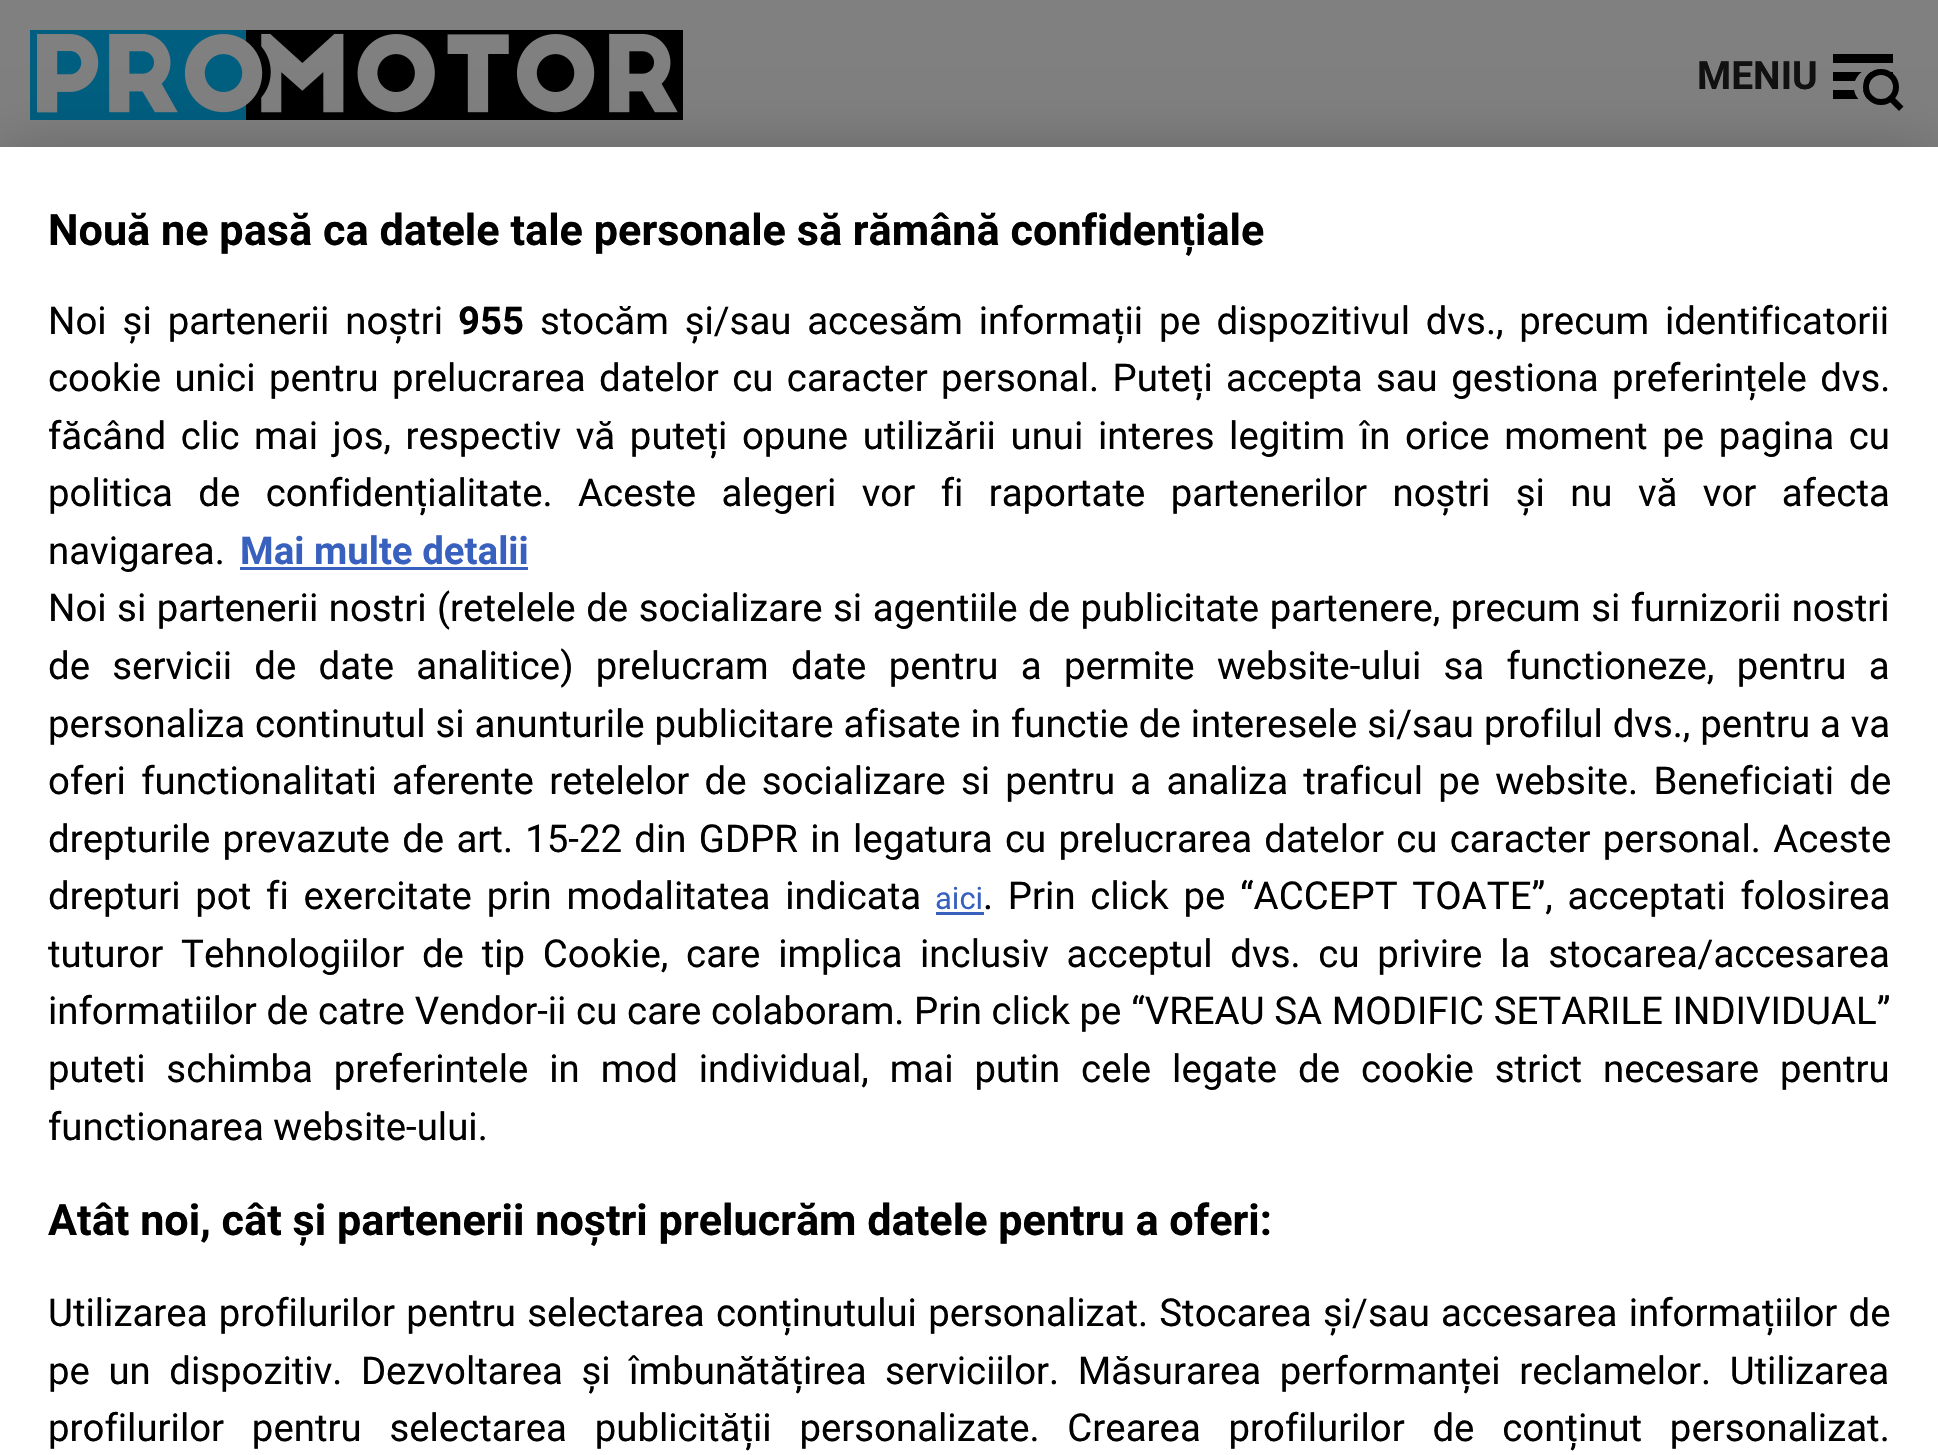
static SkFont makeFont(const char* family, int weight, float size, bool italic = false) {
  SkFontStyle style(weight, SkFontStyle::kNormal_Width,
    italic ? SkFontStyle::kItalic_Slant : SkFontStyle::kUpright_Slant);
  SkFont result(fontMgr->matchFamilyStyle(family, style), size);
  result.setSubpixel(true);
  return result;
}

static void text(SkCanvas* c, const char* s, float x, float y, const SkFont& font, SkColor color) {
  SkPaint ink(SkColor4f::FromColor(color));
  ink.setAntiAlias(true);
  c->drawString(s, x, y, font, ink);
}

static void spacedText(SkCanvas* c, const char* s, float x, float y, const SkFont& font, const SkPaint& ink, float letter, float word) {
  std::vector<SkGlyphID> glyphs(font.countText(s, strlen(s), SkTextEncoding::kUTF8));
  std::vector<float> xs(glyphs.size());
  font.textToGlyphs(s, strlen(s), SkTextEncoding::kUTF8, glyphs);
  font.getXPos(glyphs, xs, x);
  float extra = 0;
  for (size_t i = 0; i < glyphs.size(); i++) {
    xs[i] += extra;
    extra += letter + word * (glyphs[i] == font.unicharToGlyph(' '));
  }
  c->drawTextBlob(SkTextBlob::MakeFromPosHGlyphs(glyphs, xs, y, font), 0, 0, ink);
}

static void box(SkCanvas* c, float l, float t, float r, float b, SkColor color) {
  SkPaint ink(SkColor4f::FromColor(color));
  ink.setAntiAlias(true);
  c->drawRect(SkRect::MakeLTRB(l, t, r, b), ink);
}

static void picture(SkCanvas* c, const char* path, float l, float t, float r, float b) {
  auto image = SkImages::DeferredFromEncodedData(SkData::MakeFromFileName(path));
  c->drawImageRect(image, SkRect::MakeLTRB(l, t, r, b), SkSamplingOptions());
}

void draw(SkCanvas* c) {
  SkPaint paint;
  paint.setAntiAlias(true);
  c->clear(0xff808080);
  picture(c, "img_01.png", 30, 30, 683, 120);
  SkFont face1 = makeFont("Roboto", 700, 39);
  text(c, "MENIU", 1697, 89, face1, 0xff111111);
  box(c, 1833, 72, 1893, 81, 0xff000000);
  box(c, 1833, 54, 1893, 63, 0xff000000);
  box(c, 1833, 90, 1868, 99, 0xff000000);
  paint.setColor(0xff808080);
  c->drawPath(SkPathBuilder().moveTo(1872, 69).cubicTo(1852.5f, 69, 1847, 96, 1865, 103.5f).cubicTo(1868.5f, 105, 1872.5f, 105.5f, 1876.5f, 104.5f).cubicTo(1858.5f, 100, 1858.5f, 74, 1876.5f, 69.5f).close().detach(), paint);
  c->drawCircle(1881, 87, 15, paint);
  paint.setStyle(SkPaint::kStroke_Style);
  paint.setStrokeWidth(6);
  paint.setColor(0xff000000);
  c->drawCircle(1881, 87, 15, paint);
  paint.setStyle(SkPaint::kFill_Style);
  c->drawPath(SkPathBuilder().moveTo(1888.5f, 100.5f).lineTo(1893, 96).lineTo(1903.5f, 106.5f).lineTo(1899, 111).close().detach(), paint);
  paint.setColor(0x33000000);
  paint.setMaskFilter(SkMaskFilter::MakeBlur(kNormal_SkBlurStyle, 27));
  c->drawRect(SkRect::MakeLTRB(0, 147, 1938, 1455), paint);
  paint.setMaskFilter(nullptr);
  box(c, 0, 147, 1938, 1455, 0xffffffff);
  SkFont face2 = makeFont("Roboto", 700, 43.2f);
  text(c, "Nouă ne pasă ca datele tale personale să rămână confidențiale", 48, 245, face2, 0xff000000);
  SkFont face3 = makeFont("Roboto", 400, 38.4f);
  paint.setColor(0xff000000);
  spacedText(c, "Noi și partenerii noștri", 48, 334, face3, paint, 0, 6.5f);
  SkFont face4 = makeFont("Roboto", 700, 38.4f);
  text(c, "955", 458, 334, face4, 0xff000000);
  spacedText(c, "stocăm și/sau accesăm informații pe dispozitivul dvs., precum identificatorii", 540, 334, face3, paint, 0, 6.25f);
  spacedText(c, "cookie unici pentru prelucrarea datelor cu caracter personal. Puteți accepta sau gestiona preferințele dvs.", 48, 391, face3, paint, 0, 3.9f);
  spacedText(c, "făcând clic mai jos, respectiv vă puteți opune utilizării unui interes legitim în orice moment pe pagina cu", 48, 449, face3, paint, 0, 5.1f);
  spacedText(c, "politica de confidențialitate. Aceste alegeri vor fi raportate partenerilor noștri și nu vă vor afecta", 48, 506, face3, paint, 0, 15.9f);
  text(c, "navigarea.", 48, 564, face3, 0xff000000);
  text(c, "Mai multe detalii", 240, 564, face4, 0xff3860be);
  box(c, 240, 567, 528, 570, 0xff3860be);
  spacedText(c, "Noi si partenerii nostri (retelele de socializare si agentiile de publicitate partenere, precum si furnizorii nostri", 48, 621, face3, paint, 0, 1);
  spacedText(c, "de servicii de date analitice) prelucram date pentru a permite website-ului sa functioneze, pentru a", 48, 679, face3, paint, 0, 12.75f);
  spacedText(c, "personaliza continutul si anunturile publicitare afisate in functie de interesele si/sau profilul dvs., pentru a va", 48, 737, face3, paint, 0, 0.4f);
  spacedText(c, "oferi functionalitati aferente retelelor de socializare si pentru a analiza traficul pe website. Beneficiati de", 48, 794, face3, paint, 0, 5.75f);
  spacedText(c, "drepturile prevazute de art. 15-22 din GDPR in legatura cu prelucrarea datelor cu caracter personal. Aceste", 48, 852, face3, paint, 0, 2.75f);
  spacedText(c, "drepturi pot fi exercitate prin modalitatea indicata", 48, 909, face3, paint, 0, 5.25f);
  SkFont face5 = makeFont("Roboto", 400, 31);
  text(c, "aici", 935, 909, face5, 0xff3860be);
  box(c, 936, 912, 984, 915, 0xff3860be);
  spacedText(c, ". Prin click pe “ACCEPT TOATE”, acceptati folosirea", 983, 909, face3, paint, 0, 5.25f);
  spacedText(c, "tuturor Tehnologiilor de tip Cookie, care implica inclusiv acceptul dvs. cu privire la stocarea/accesarea", 48, 967, face3, paint, 0, 8.25f);
  spacedText(c, "informatiilor de catre Vendor-ii cu care colaboram. Prin click pe “VREAU SA MODIFIC SETARILE INDIVIDUAL”", 48, 1024, face3, paint, 0, 0.2f);
  spacedText(c, "puteti schimba preferintele in mod individual, mai putin cele legate de cookie strict necesare pentru", 48, 1082, face3, paint, 0, 11.4f);
  text(c, "functionarea website-ului.", 48, 1140, face3, 0xff000000);
  text(c, "Atât noi, cât și partenerii noștri prelucrăm datele pentru a oferi:", 48, 1235, face2, 0xff000000);
  spacedText(c, "Utilizarea profilurilor pentru selectarea conținutului personalizat. Stocarea și/sau accesarea informațiilor de", 48, 1326, face3, paint, 0, 1.75f);
  spacedText(c, "pe un dispozitiv. Dezvoltarea și îmbunătățirea serviciilor. Măsurarea performanței reclamelor. Utilizarea", 48, 1384, face3, paint, 0, 9);
  spacedText(c, "profilurilor pentru selectarea publicității personalizate. Crearea profilurilor de conținut personalizat.", 48, 1441, face3, paint, 0, 18.25f);
}
